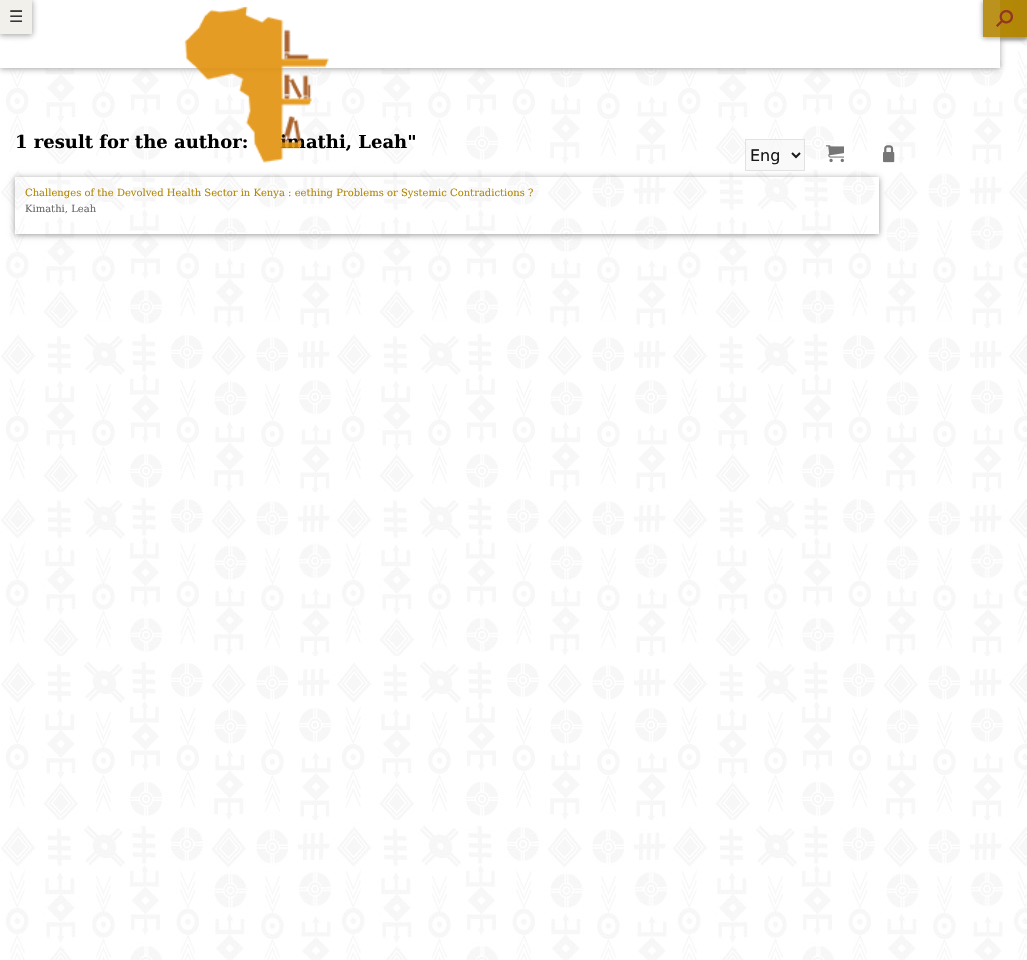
static SkFont makeFont(const char* family, int weight, float size, bool italic = false) {
  SkFontStyle style(weight, SkFontStyle::kNormal_Width,
    italic ? SkFontStyle::kItalic_Slant : SkFontStyle::kUpright_Slant);
  SkFont result(fontMgr->matchFamilyStyle(family, style), size);
  result.setSubpixel(true);
  return result;
}

static void text(SkCanvas* c, const char* s, float x, float y, const SkFont& font, SkColor color) {
  SkPaint ink(SkColor4f::FromColor(color));
  ink.setAntiAlias(true);
  c->drawString(s, x, y, font, ink);
}

static void box(SkCanvas* c, float l, float t, float r, float b, SkColor color) {
  SkPaint ink(SkColor4f::FromColor(color));
  ink.setAntiAlias(true);
  c->drawRect(SkRect::MakeLTRB(l, t, r, b), ink);
}

static void picture(SkCanvas* c, const char* path, float l, float t, float r, float b) {
  auto image = SkImages::DeferredFromEncodedData(SkData::MakeFromFileName(path));
  c->drawImageRect(image, SkRect::MakeLTRB(l, t, r, b), SkSamplingOptions());
}

void draw(SkCanvas* c) {
  SkPaint paint;
  paint.setAntiAlias(true);
  c->clear(0xffffffff);
  picture(c, "img_01.png", 1, 6, 1027, 960);
  paint.setColor(0xff999999);
  paint.setMaskFilter(SkMaskFilter::MakeBlur(kNormal_SkBlurStyle, 3));
  c->drawRect(SkRect::MakeLTRB(0, 1, 32, 35), paint);
  paint.setMaskFilter(nullptr);
  paint.setMaskFilter(SkMaskFilter::MakeBlur(kNormal_SkBlurStyle, 2.5f));
  c->drawRect(SkRect::MakeLTRB(983, 1, 1027, 38), paint);
  paint.setMaskFilter(nullptr);
  paint.setMaskFilter(SkMaskFilter::MakeBlur(kNormal_SkBlurStyle, 3));
  c->drawRect(SkRect::MakeLTRB(0, 1, 32, 35), paint);
  paint.setMaskFilter(nullptr);
  paint.setMaskFilter(SkMaskFilter::MakeBlur(kNormal_SkBlurStyle, 3));
  c->drawRect(SkRect::MakeLTRB(0, 1, 32, 35), paint);
  paint.setMaskFilter(nullptr);
  box(c, 0, 0, 32, 34, 0xfff0eee9);
  paint.setMaskFilter(SkMaskFilter::MakeBlur(kNormal_SkBlurStyle, 2.5f));
  c->drawRect(SkRect::MakeLTRB(983, 1, 1027, 38), paint);
  paint.setMaskFilter(nullptr);
  paint.setMaskFilter(SkMaskFilter::MakeBlur(kNormal_SkBlurStyle, 2.5f));
  c->drawRect(SkRect::MakeLTRB(983, 1, 1027, 38), paint);
  paint.setMaskFilter(nullptr);
  box(c, 983, 0, 1027, 37, 0xffb28707);
  picture(c, "img_06.png", 996, 10, 1013, 27);
  c->save();
  c->clipPath(SkPathBuilder(SkPathFillType::kEvenOdd).moveTo(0, 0).lineTo(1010, 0).lineTo(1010, 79).lineTo(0, 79).close().moveTo(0, 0).lineTo(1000, 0).lineTo(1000, 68).lineTo(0, 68).close().detach(), true);
  paint.setColor(0xe6999999);
  paint.setMaskFilter(SkMaskFilter::MakeBlur(kNormal_SkBlurStyle, 3));
  c->drawRect(SkRect::MakeLTRB(0, 1, 1000, 69), paint);
  paint.setMaskFilter(nullptr);
  c->restore();
  box(c, 0, 0, 1000, 68, 0xe6ffffff);
  c->save();
  c->clipPath(SkPathBuilder(SkPathFillType::kEvenOdd).moveTo(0, 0).lineTo(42, 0).lineTo(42, 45).lineTo(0, 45).close().moveTo(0, 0).lineTo(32, 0).lineTo(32, 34).lineTo(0, 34).close().detach(), true);
  paint.setMaskFilter(SkMaskFilter::MakeBlur(kNormal_SkBlurStyle, 3));
  c->drawRect(SkRect::MakeLTRB(0, 1, 32, 35), paint);
  paint.setMaskFilter(nullptr);
  c->restore();
  box(c, 0, 0, 32, 34, 0xe6f0eee9);
  SkFont face1 = makeFont("DejaVu Sans", 400, 16);
  text(c, "☰", 9, 22, face1, 0xff373636);
  SkFont face2 = makeFont("DejaVu Serif", 700, 18);
  text(c, "1 result for the author:", 15, 148, face2, 0xff000000);
  text(c, "imathi, Leah\"", 280, 148, face2, 0xff000000);
  picture(c, "img_02.png", 184, 6, 329, 163);
  c->save();
  c->clipPath(SkPathBuilder(SkPathFillType::kEvenOdd).moveTo(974, 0).lineTo(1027, 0).lineTo(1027, 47).lineTo(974, 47).close().moveTo(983, 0).lineTo(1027, 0).lineTo(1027, 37).lineTo(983, 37).close().detach(), true);
  paint.setMaskFilter(SkMaskFilter::MakeBlur(kNormal_SkBlurStyle, 2.5f));
  c->drawRect(SkRect::MakeLTRB(983, 1, 1027, 38), paint);
  paint.setMaskFilter(nullptr);
  c->restore();
  box(c, 983, 0, 1013, 37, 0xe6b28707);
  picture(c, "img_03.png", 996, 10, 1013, 27);
  c->save();
  c->clipPath(SkPathBuilder(SkPathFillType::kEvenOdd).moveTo(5, 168).lineTo(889, 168).lineTo(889, 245).lineTo(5, 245).close().moveTo(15, 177).lineTo(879, 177).lineTo(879, 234).lineTo(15, 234).close().detach(), true);
  paint.setColor(0xff999999);
  paint.setMaskFilter(SkMaskFilter::MakeBlur(kNormal_SkBlurStyle, 3));
  c->drawRect(SkRect::MakeLTRB(15, 178, 879, 235), paint);
  paint.setMaskFilter(nullptr);
  c->restore();
  box(c, 745, 139, 805, 171, 0x99f5f5f5);
  paint.setStyle(SkPaint::kStroke_Style);
  paint.setStrokeWidth(1);
  paint.setColor(0xe6e0dfdf);
  c->drawRect(SkRect::MakeLTRB(745.5f, 139.5f, 804.5f, 170.5f), paint);
  paint.setStrokeWidth(2);
  paint.setColor(0xff1a1a1a);
  c->drawPath(SkPathBuilder().moveTo(792, 153).lineTo(796, 157).lineTo(800, 153).detach(), paint);
  text(c, "Eng", 750, 161, face1, 0xff191919);
  picture(c, "img_04.png", 826, 145, 844, 163);
  picture(c, "img_05.png", 883, 145, 895, 163);
  SkFont face3 = makeFont("DejaVu Serif", 400, 10);
  text(c, "Challenges of the Devolved Health Sector in Kenya : eething Problems or Systemic Contradictions ?", 25, 196, face3, 0xffb28707);
  text(c, "Kimathi, Leah", 25, 212, face3, 0xff676767);
}
